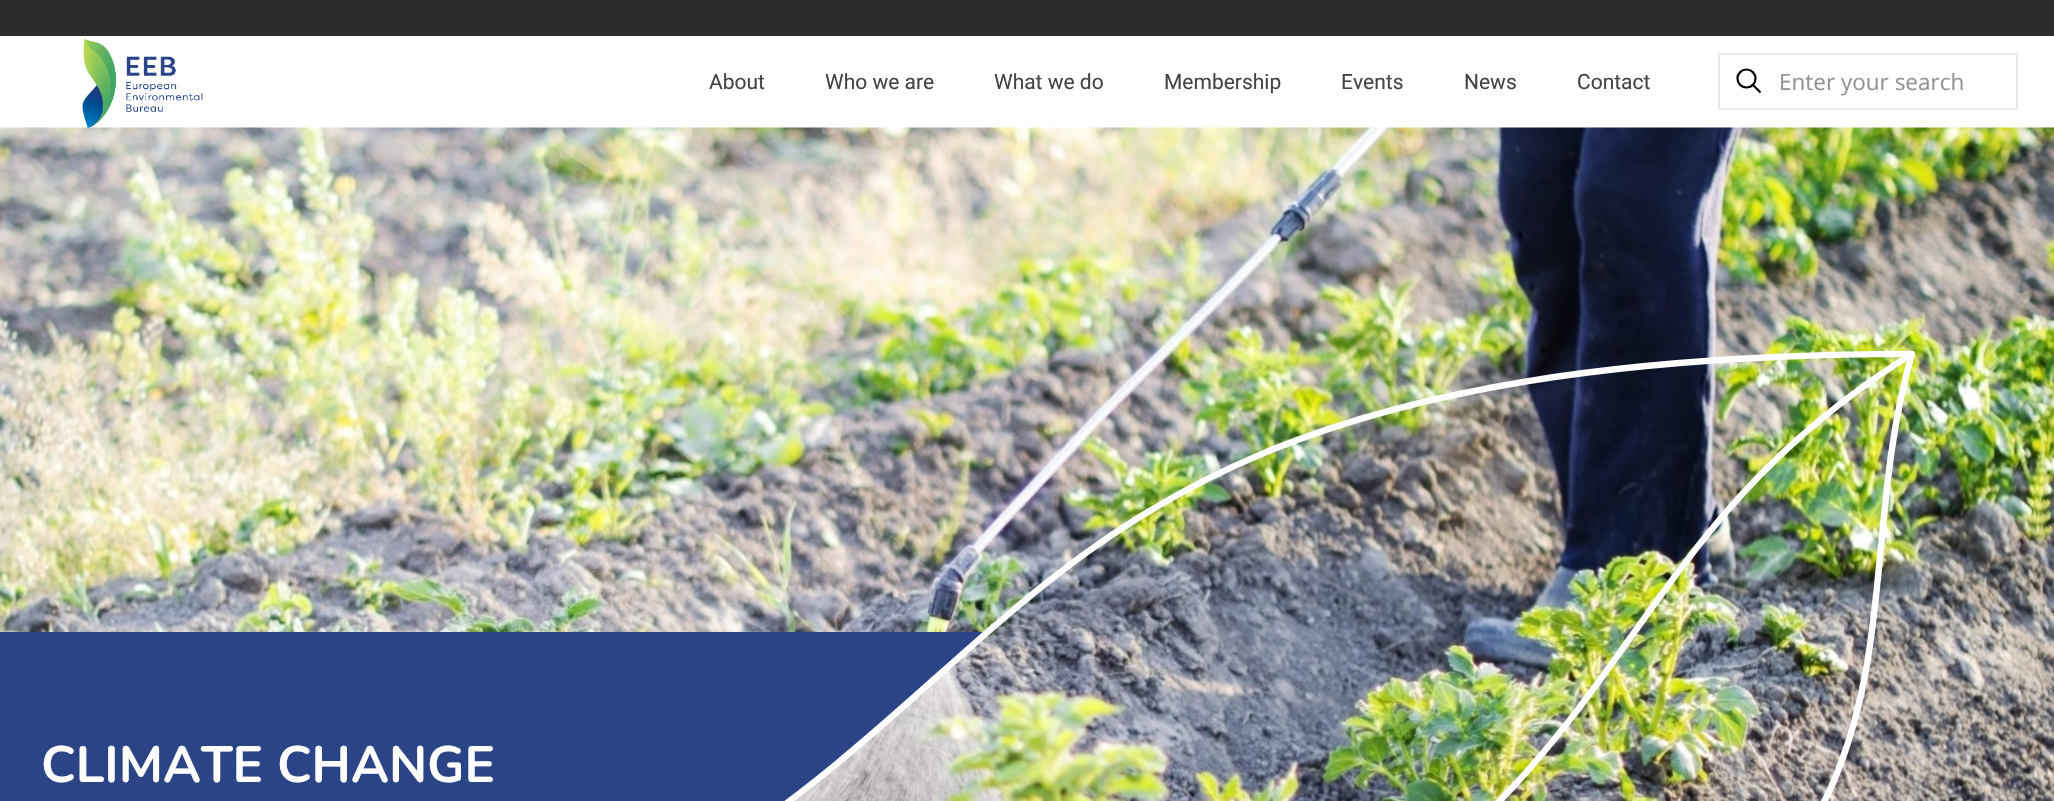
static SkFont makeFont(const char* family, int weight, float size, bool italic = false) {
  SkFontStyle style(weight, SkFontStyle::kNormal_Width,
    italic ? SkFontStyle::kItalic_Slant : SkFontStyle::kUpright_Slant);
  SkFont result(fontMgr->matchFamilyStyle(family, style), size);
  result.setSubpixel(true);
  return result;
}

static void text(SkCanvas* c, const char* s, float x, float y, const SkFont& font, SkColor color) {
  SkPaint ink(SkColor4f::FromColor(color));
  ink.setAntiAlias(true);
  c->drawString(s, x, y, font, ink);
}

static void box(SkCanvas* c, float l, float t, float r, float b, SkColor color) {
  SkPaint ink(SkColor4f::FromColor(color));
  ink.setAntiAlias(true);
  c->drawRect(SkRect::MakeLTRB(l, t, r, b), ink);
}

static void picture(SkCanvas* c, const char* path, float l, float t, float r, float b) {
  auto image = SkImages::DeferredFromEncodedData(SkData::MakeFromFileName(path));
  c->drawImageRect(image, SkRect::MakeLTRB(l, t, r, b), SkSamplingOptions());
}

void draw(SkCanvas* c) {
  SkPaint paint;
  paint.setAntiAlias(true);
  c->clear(0xffffffff);
  box(c, 0, 0, 2054, 36, 0xff2c2c2c);
  picture(c, "img_01.png", 82, 39, 203, 128);
  SkFont face1 = makeFont("Roboto", 400, 21);
  text(c, "About", 709, 89, face1, 0xff444444);
  text(c, "Who we are", 825, 89, face1, 0xff444444);
  text(c, "What we do", 994, 89, face1, 0xff444444);
  text(c, "Membership", 1164, 89, face1, 0xff444444);
  text(c, "Events", 1341, 89, face1, 0xff444444);
  text(c, "News", 1464, 89, face1, 0xff444444);
  text(c, "Contact", 1577, 89, face1, 0xff444444);
  paint.setStyle(SkPaint::kStroke_Style);
  paint.setStrokeWidth(2);
  paint.setColor(0xffebebeb);
  c->drawRect(SkRect::MakeLTRB(1719, 54, 2017, 109), paint);
  paint.setStrokeWidth(2.2f);
  paint.setColor(0xff000000);
  c->drawCircle(1746.5f, 78.5f, 9, paint);
  c->drawPath(SkPathBuilder().moveTo(1753, 85).lineTo(1760.5f, 92.5f).detach(), paint);
  SkFont face2 = makeFont("Open Sans", 400, 22.5f);
  text(c, "Enter your search", 1779, 90, face2, 0xff929292);
  picture(c, "img_02.png", 0, 127, 2054, 801);
  picture(c, "img_03.png", 0, 350, 1916, 801);
  SkFont face3 = makeFont("Nunito", 700, 51);
  text(c, "CLIMATE CHANGE", 41, 782, face3, 0xffffffff);
}
